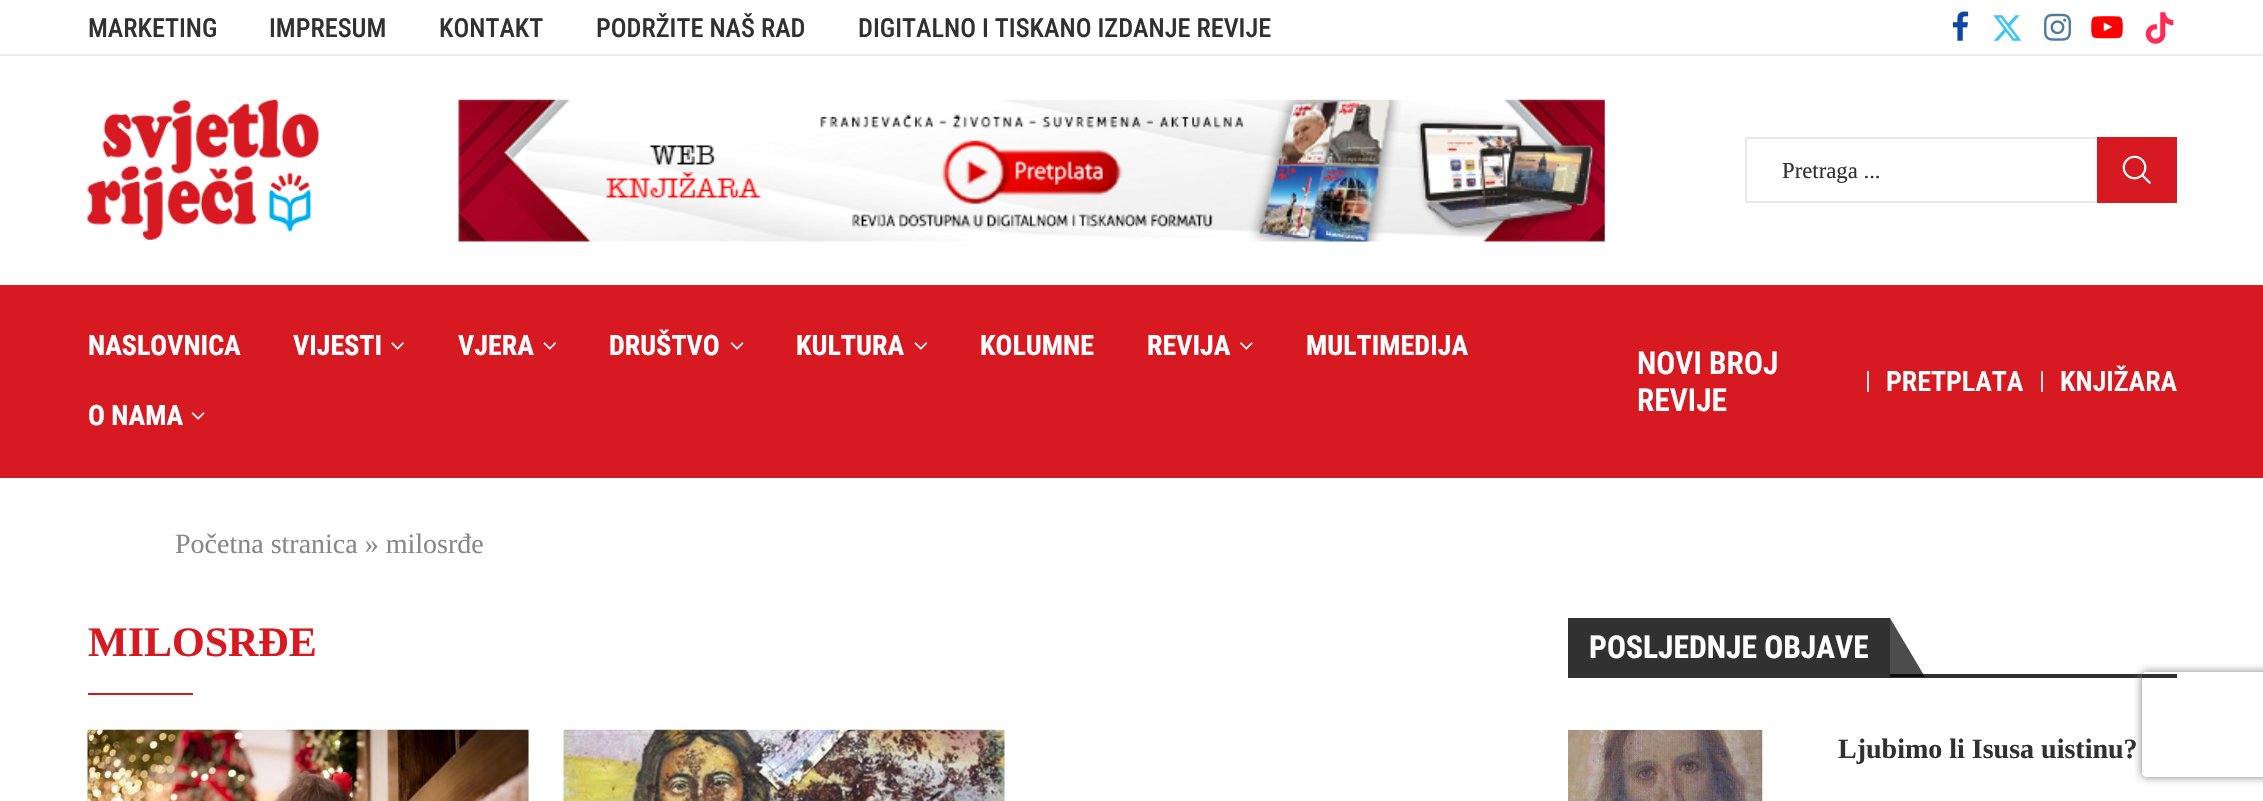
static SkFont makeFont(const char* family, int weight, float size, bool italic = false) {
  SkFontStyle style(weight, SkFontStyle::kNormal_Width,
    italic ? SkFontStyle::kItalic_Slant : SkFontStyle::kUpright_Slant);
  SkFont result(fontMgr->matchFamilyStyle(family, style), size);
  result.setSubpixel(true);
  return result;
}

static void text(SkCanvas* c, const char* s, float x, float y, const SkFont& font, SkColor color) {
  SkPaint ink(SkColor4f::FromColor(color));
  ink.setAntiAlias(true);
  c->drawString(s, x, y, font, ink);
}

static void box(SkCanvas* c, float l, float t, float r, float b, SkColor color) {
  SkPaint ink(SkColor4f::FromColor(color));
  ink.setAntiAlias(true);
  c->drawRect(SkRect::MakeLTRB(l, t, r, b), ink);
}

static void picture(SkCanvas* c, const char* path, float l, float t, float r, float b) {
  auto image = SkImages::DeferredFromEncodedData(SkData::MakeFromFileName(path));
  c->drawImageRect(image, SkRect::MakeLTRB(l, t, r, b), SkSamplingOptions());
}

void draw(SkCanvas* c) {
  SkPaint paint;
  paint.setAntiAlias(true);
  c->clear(0xffffffff);
  box(c, 0, 54, 2263, 56, 0xffececec);
  SkFont face1 = makeFont("Roboto Condensed", 500, 26.25f);
  text(c, "MARKETING", 88, 37, face1, 0xff313131);
  text(c, "IMPRESUM", 269, 37, face1, 0xff313131);
  text(c, "KONTAKT", 439, 37, face1, 0xff313131);
  text(c, "PODRŽITE NAŠ RAD", 596, 37, face1, 0xff313131);
  text(c, "DIGITALNO I TISKANO IZDANJE REVIJE", 858, 37, face1, 0xff313131);
  picture(c, "img_01.png", 1952, 11, 1969, 41);
  picture(c, "img_02.png", 1993, 15, 2022, 41);
  picture(c, "img_03.png", 2044, 13, 2071, 41);
  picture(c, "img_04.png", 2091, 16, 2123, 39);
  picture(c, "img_05.png", 2145, 12, 2174, 44);
  picture(c, "img_06.png", 87, 99, 319, 240);
  picture(c, "img_07.png", 458, 99, 1605, 242);
  box(c, 1745, 137, 2097, 139, 0xffe9e9e9);
  box(c, 1745, 201, 2097, 203, 0xffe9e9e9);
  box(c, 1745, 137, 1747, 203, 0xffe9e9e9);
  SkFont face2 = makeFont("Liberation Serif", 400, 22.75f);
  text(c, "Pretraga ...", 1782, 178, face2, 0xff313131);
  box(c, 2097, 137, 2177, 203, 0xffd71921);
  picture(c, "img_08.png", 2122, 155, 2151, 184);
  box(c, 0, 285, 2263, 478, 0xffd71921);
  SkFont face3 = makeFont("Roboto Condensed", 700, 28);
  text(c, "NASLOVNICA", 88, 355, face3, 0xffffffff);
  text(c, "VIJESTI", 293, 355, face3, 0xffffffff);
  picture(c, "img_09.png", 391, 342, 404, 350);
  text(c, "VJERA", 458, 355, face3, 0xffffffff);
  picture(c, "img_10.png", 543, 342, 557, 350);
  text(c, "DRUŠTVO", 609, 355, face3, 0xffffffff);
  picture(c, "img_11.png", 730, 342, 744, 350);
  text(c, "KULTURA", 796, 355, face3, 0xffffffff);
  picture(c, "img_10.png", 914, 342, 928, 350);
  text(c, "KOLUMNE", 980, 355, face3, 0xffffffff);
  text(c, "REVIJA", 1147, 355, face3, 0xffffffff);
  picture(c, "img_12.png", 1240, 342, 1253, 350);
  text(c, "MULTIMEDIJA", 1306, 355, face3, 0xffffffff);
  text(c, "O NAMA", 88, 425, face3, 0xffffffff);
  picture(c, "img_11.png", 191, 412, 205, 420);
  SkFont face4 = makeFont("Roboto Condensed", 600, 31.5f);
  text(c, "NOVI BROJ", 1637, 374, face4, 0xffffffff);
  text(c, "REVIJE", 1637, 411, face4, 0xffffffff);
  box(c, 1867, 371, 1869, 392, 0xffdedede);
  SkFont face5 = makeFont("Roboto Condensed", 600, 28);
  text(c, "PRETPLATA", 1886, 391, face5, 0xffffffff);
  box(c, 2041, 371, 2043, 392, 0xffdedede);
  text(c, "KNJIŽARA", 2060, 391, face5, 0xffffffff);
  SkFont face6 = makeFont("Liberation Serif", 400, 28);
  text(c, "Početna stranica » milosrđe", 175, 553, face6, 0xff888888);
  SkFont face7 = makeFont("Liberation Serif", 700, 42);
  text(c, "MILOSRĐE", 88, 656, face7, 0xffd71921);
  box(c, 88, 693, 193, 695, 0xffd71921);
  box(c, 528, 730, 529, 801, 0xfff5f5f5);
  picture(c, "img_13.png", 87, 729, 529, 801);
  box(c, 1004, 730, 1005, 801, 0xfff5f5f5);
  picture(c, "img_14.png", 563, 729, 1005, 801);
  box(c, 1568, 674, 2177, 678, 0xff313131);
  box(c, 1568, 618, 1890, 674, 0xff313131);
  SkFont face8 = makeFont("Roboto Condensed", 700, 31.5f);
  text(c, "POSLJEDNJE OBJAVE", 1589, 658, face8, 0xffffffff);
  paint.setColor(0xb3000000);
  c->drawPath(SkPathBuilder().moveTo(1925, 677).lineTo(1890, 677).lineTo(1890, 618).close().detach(), paint);
  picture(c, "img_15.png", 1568, 729, 1763, 801);
  SkFont face9 = makeFont("Liberation Serif", 700, 28);
  text(c, "Ljubimo li Isusa uistinu?", 1838, 758, face9, 0xff313131);
  c->save();
  c->clipPath(SkPathBuilder(SkPathFillType::kEvenOdd).moveTo(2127, 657).lineTo(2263, 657).lineTo(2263, 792).lineTo(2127, 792).close().moveTo(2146, 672).lineTo(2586, 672).cubicTo(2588, 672, 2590, 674, 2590, 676).lineTo(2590, 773).cubicTo(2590, 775, 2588, 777, 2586, 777).lineTo(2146, 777).cubicTo(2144, 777, 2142, 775, 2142, 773).lineTo(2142, 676).cubicTo(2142, 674, 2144, 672, 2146, 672).close().detach(), true);
  paint.setColor(0xff808080);
  paint.setMaskFilter(SkMaskFilter::MakeBlur(kNormal_SkBlurStyle, 4.5f));
  c->drawRoundRect(SkRect::MakeLTRB(2142, 672, 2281, 777), 4, 4, paint);
  paint.setMaskFilter(nullptr);
  c->restore();
}
